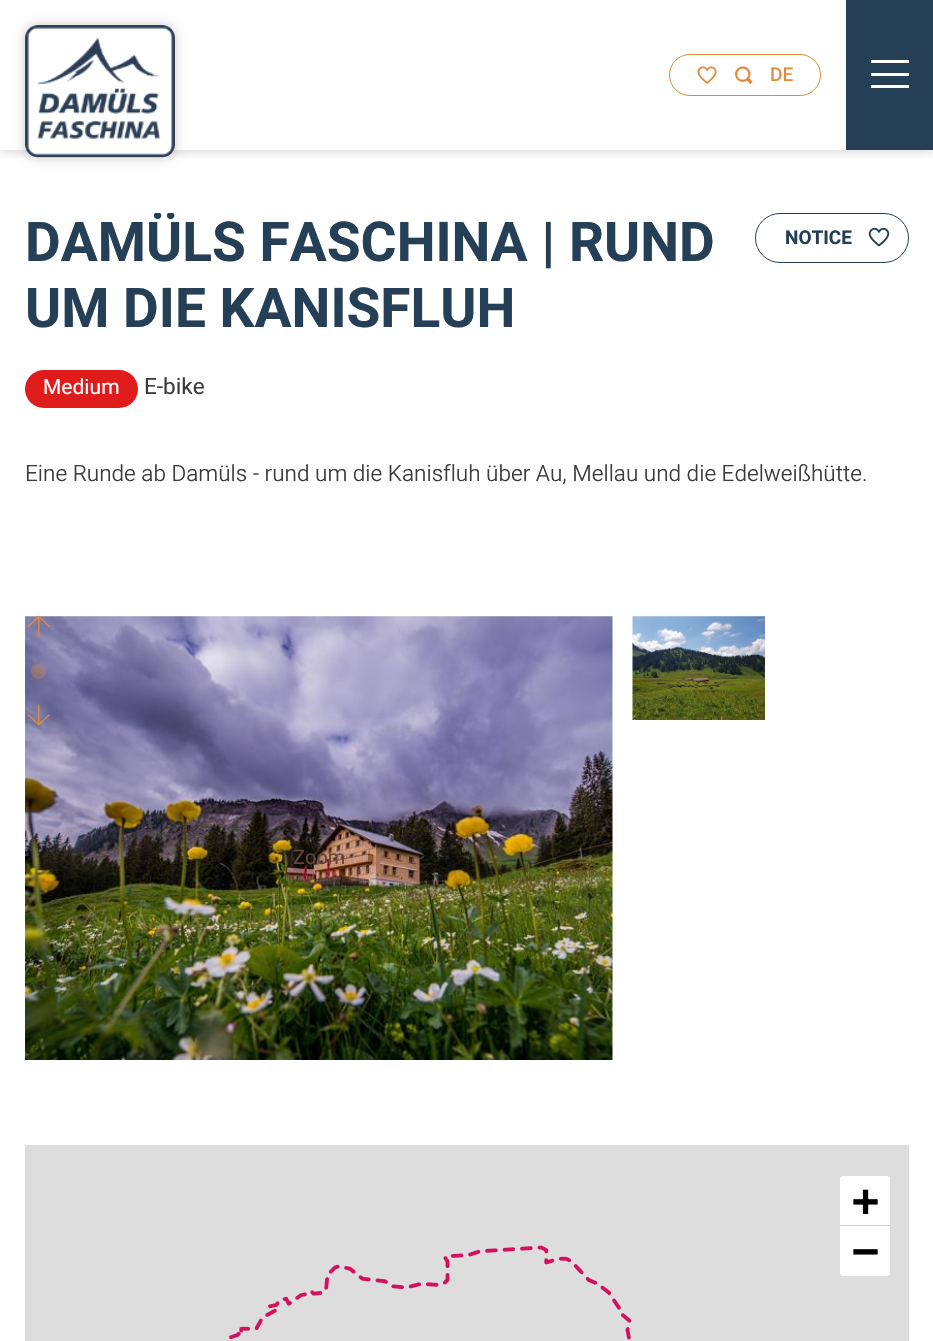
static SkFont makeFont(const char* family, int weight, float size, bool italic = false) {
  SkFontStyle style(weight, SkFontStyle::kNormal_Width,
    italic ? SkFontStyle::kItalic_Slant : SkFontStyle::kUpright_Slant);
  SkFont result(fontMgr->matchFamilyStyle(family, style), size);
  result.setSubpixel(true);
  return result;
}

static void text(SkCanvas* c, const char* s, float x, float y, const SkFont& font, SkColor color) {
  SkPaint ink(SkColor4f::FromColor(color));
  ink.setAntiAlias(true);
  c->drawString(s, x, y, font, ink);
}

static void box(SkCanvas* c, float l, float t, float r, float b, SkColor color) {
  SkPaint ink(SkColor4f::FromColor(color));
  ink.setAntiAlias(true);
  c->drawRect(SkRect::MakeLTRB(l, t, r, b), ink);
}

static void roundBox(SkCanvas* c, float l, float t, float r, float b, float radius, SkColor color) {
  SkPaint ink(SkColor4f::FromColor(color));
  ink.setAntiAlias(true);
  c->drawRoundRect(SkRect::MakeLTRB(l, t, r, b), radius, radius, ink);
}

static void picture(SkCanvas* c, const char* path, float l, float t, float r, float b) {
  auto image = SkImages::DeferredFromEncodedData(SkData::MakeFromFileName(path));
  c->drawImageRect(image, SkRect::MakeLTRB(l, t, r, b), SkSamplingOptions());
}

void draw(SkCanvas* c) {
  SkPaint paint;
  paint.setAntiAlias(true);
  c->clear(0xffffffff);
  c->save();
  c->clipRect(SkRect::MakeLTRB(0, 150, 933, 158));
  paint.setColor(0x33000000);
  paint.setMaskFilter(SkMaskFilter::MakeBlur(kNormal_SkBlurStyle, 6));
  c->drawRect(SkRect::MakeLTRB(0, 0, 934, 150), paint);
  paint.setMaskFilter(nullptr);
  c->restore();
  paint.setMaskFilter(SkMaskFilter::MakeBlur(kNormal_SkBlurStyle, 6));
  c->drawRoundRect(SkRect::MakeLTRB(25, 25, 175, 158), 13, 13, paint);
  paint.setMaskFilter(nullptr);
  roundBox(c, 25, 25, 175, 158, 13, 0xffffffff);
  picture(c, "img_01.png", 25, 25, 175, 158);
  paint.setStyle(SkPaint::kStroke_Style);
  paint.setStrokeWidth(1);
  paint.setColor(0xffe18a3a);
  c->drawRoundRect(SkRect::MakeLTRB(669.5f, 54.5f, 820.5f, 95.5f), 20.5f, 20.5f, paint);
  picture(c, "img_02.png", 697, 66, 717, 84);
  picture(c, "img_03.png", 735, 66, 753, 84);
  SkFont face1 = makeFont("Heebo", 500, 19);
  text(c, "DE", 770, 81, face1, 0xffe18a3a);
  box(c, 846, 0, 933, 150, 0xff243f56);
  box(c, 871, 73, 909, 76, 0xffffffff);
  box(c, 871, 60, 909, 63, 0xffffffff);
  box(c, 871, 85, 909, 88, 0xffffffff);
  c->save();
  c->clipRect(SkRect::MakeLTRB(0, 213, 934, 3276));
  SkFont face2 = makeFont("Heebo", 700, 55);
  text(c, "DAMÜLS FASCHINA | RUND", 25, 261, face2, 0xff243f56);
  c->restore();
  text(c, "UM DIE KANISFLUH", 25, 327, face2, 0xff243f56);
  paint.setColor(0xff243f56);
  c->drawRoundRect(SkRect::MakeLTRB(755.5f, 213.5f, 908.5f, 262.5f), 24.5f, 24.5f, paint);
  SkFont face3 = makeFont("Heebo", 700, 19);
  text(c, "NOTICE", 785, 244, face3, 0xff243f56);
  picture(c, "img_04.png", 868, 227, 890, 247);
  roundBox(c, 25, 370, 138, 408, 19, 0xffe01b1b);
  SkFont face4 = makeFont("Heebo", 400, 21);
  text(c, "Medium", 43, 394, face4, 0xffffffff);
  SkFont face5 = makeFont("Heebo", 400, 22.5f);
  text(c, "E-bike", 144, 394, face5, 0xff3b3b3b);
  SkFont face6 = makeFont("Heebo", 300, 22.5f);
  text(c, "Eine Runde ab Damüls - rund um die Kanisfluh über Au, Mellau und die Edelweißhütte.", 25, 481, face6, 0xff3b3b3b);
  picture(c, "img_05.png", 632, 616, 765, 720);
  picture(c, "img_06.png", 25, 616, 613, 1060);
  SkFont face7 = makeFont("Heebo", 400, 20);
  text(c, "Zoom", 293, 864, face7, 0xff624737);
  box(c, 25, 1145, 909, 1341, 0xffdddddd);
  paint.setStyle(SkPaint::kFill_Style);
  paint.setColor(0xffffffff);
  c->drawPath(SkPathBuilder().moveTo(842.5f, 1176).lineTo(887.5f, 1176).cubicTo(889, 1176, 890, 1177, 890, 1178.5f).lineTo(890, 1226).lineTo(840, 1226).lineTo(840, 1178.5f).cubicTo(840, 1177, 841, 1176, 842.5f, 1176).close().detach(), paint);
  box(c, 840, 1225, 890, 1226, 0xffcccccc);
  SkFont face8 = makeFont("DejaVu Sans Mono", 700, 45);
  text(c, "+", 852, 1216, face8, 0xff000000);
  c->drawPath(SkPathBuilder().moveTo(840, 1226).lineTo(890, 1226).lineTo(890, 1273.5f).cubicTo(890, 1275, 889, 1276, 887.5f, 1276).lineTo(842.5f, 1276).cubicTo(841, 1276, 840, 1275, 840, 1273.5f).close().detach(), paint);
  text(c, "−", 852, 1266, face8, 0xff000000);
  picture(c, "img_07.png", 229, 1245, 632, 1340);
  picture(c, "img_08.png", 27, 615, 50, 637);
  paint.setColor(0x4de18a3a);
  c->drawCircle(38.5f, 671.5f, 7.5f, paint);
  picture(c, "img_09.png", 27, 704, 50, 726);
}
